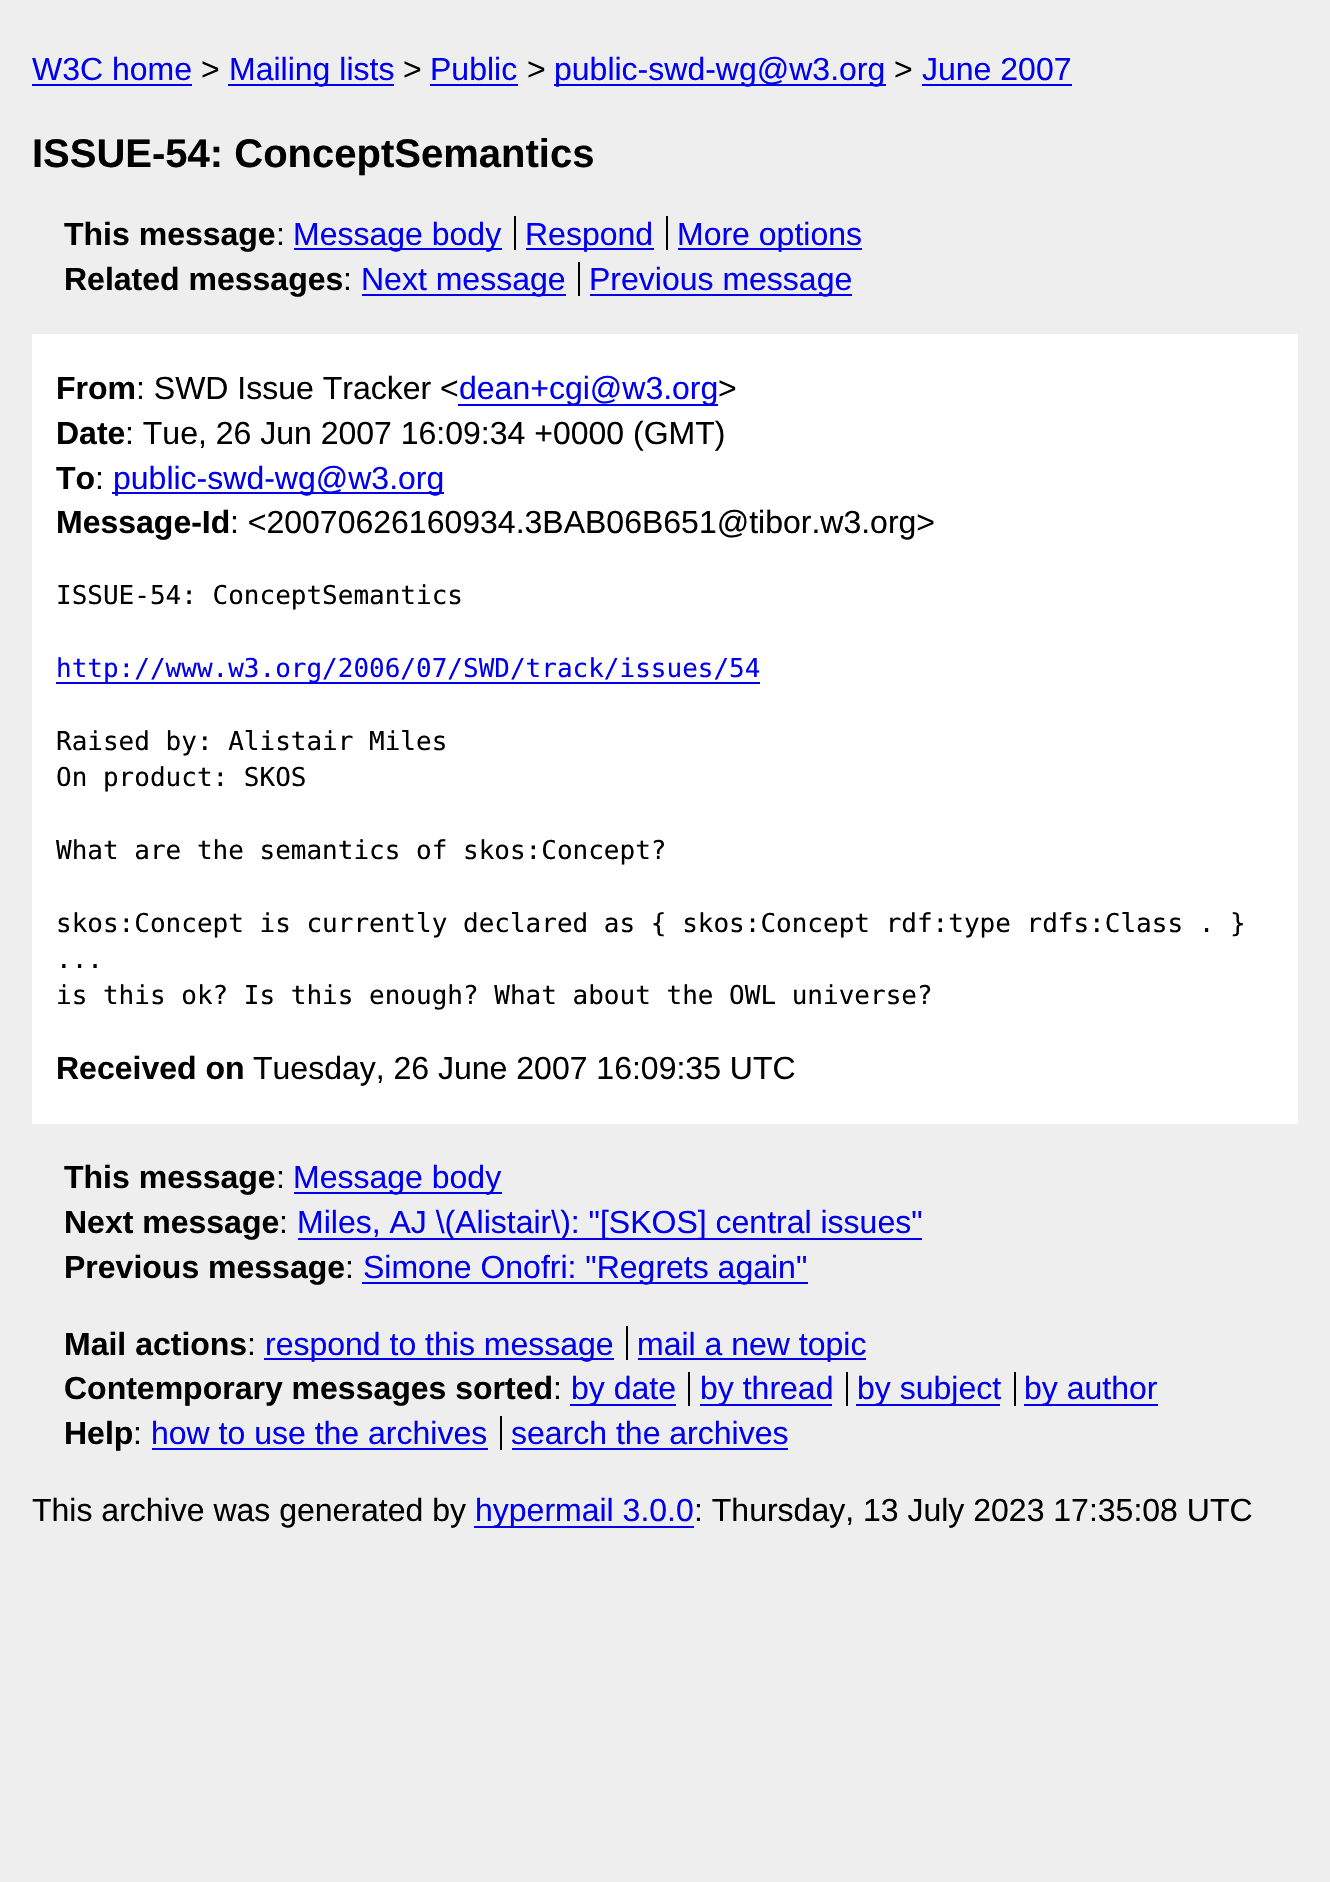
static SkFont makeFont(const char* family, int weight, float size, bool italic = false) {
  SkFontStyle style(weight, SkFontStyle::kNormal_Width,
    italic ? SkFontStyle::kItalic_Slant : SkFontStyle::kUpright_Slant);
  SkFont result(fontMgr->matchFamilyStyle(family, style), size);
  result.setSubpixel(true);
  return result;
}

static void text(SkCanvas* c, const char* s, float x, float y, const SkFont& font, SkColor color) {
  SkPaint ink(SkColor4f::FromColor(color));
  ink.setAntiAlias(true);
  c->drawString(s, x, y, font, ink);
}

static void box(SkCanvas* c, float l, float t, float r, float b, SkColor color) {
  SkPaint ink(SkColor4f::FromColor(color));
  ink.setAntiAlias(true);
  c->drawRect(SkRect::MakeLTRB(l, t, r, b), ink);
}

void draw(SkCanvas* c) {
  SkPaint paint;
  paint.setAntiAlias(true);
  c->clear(0xffeeeeee);
  SkFont face1 = makeFont("Liberation Sans", 400, 32);
  text(c, "W3C home", 32, 80, face1, 0xff0000ee);
  box(c, 32, 84, 192, 86, 0xff0000ee);
  text(c, ">", 201, 80, face1, 0xff000000);
  box(c, 228, 84, 394, 86, 0xff0000ee);
  text(c, "Mailing lists", 229, 80, face1, 0xff0000ee);
  text(c, ">", 403, 80, face1, 0xff000000);
  text(c, "Public", 430, 80, face1, 0xff0000ee);
  box(c, 430, 84, 518, 86, 0xff0000ee);
  text(c, ">", 527, 80, face1, 0xff000000);
  box(c, 554, 84, 886, 86, 0xff0000ee);
  text(c, "public-swd-wg@w3.org", 554, 80, face1, 0xff0000ee);
  text(c, ">", 894, 80, face1, 0xff000000);
  text(c, "June 2007", 922, 80, face1, 0xff0000ee);
  box(c, 922, 84, 1072, 86, 0xff0000ee);
  SkFont face2 = makeFont("Liberation Sans", 700, 40);
  text(c, "ISSUE-54: ConceptSemantics", 32, 167, face2, 0xff000000);
  SkFont face3 = makeFont("Liberation Sans", 700, 32);
  text(c, "This message", 64, 245, face3, 0xff000000);
  text(c, ":", 276, 245, face1, 0xff000000);
  box(c, 294, 248, 502, 250, 0xff0000ee);
  text(c, "Message body", 293, 245, face1, 0xff0000ee);
  box(c, 526, 248, 654, 250, 0xff0000ee);
  text(c, "Respond", 525, 245, face1, 0xff0000ee);
  box(c, 514, 216, 516, 250, 0xff000000);
  box(c, 678, 248, 862, 250, 0xff0000ee);
  text(c, "More options", 677, 245, face1, 0xff0000ee);
  box(c, 666, 216, 668, 250, 0xff000000);
  text(c, "Related messages", 64, 290, face3, 0xff000000);
  text(c, ":", 343, 290, face1, 0xff000000);
  box(c, 362, 294, 566, 296, 0xff0000ee);
  text(c, "Next message", 361, 290, face1, 0xff0000ee);
  box(c, 590, 294, 852, 296, 0xff0000ee);
  text(c, "Previous message", 589, 290, face1, 0xff0000ee);
  box(c, 578, 262, 580, 296, 0xff000000);
  box(c, 32, 334, 1298, 1124, 0xffffffff);
  text(c, "From", 56, 399, face3, 0xff000000);
  text(c, ": SWD Issue Tracker <", 136, 399, face1, 0xff000000);
  box(c, 458, 404, 718, 406, 0xff0000ee);
  text(c, "dean+cgi@w3.org", 459, 399, face1, 0xff0000ee);
  text(c, ">", 718, 399, face1, 0xff000000);
  text(c, "Date", 56, 444, face3, 0xff000000);
  text(c, ": Tue, 26 Jun 2007 16:09:34 +0000 (GMT)", 125, 444, face1, 0xff000000);
  text(c, "To", 56, 489, face3, 0xff000000);
  text(c, ":", 95, 489, face1, 0xff000000);
  box(c, 112, 492, 444, 494, 0xff0000ee);
  text(c, "public-swd-wg@w3.org", 113, 489, face1, 0xff0000ee);
  text(c, "Message-Id", 56, 533, face3, 0xff000000);
  text(c, ": <20070626160934.3BAB06B651@tibor.w3.org>", 230, 533, face1, 0xff000000);
  SkFont face4 = makeFont("DejaVu Sans Mono", 400, 26);
  text(c, "ISSUE-54: ConceptSemantics", 56, 604, face4, 0xff000000);
  box(c, 56, 682, 760, 684, 0xff0000ee);
  text(c, "http://www.w3.org/2006/07/SWD/track/issues/54", 56, 677, face4, 0xff0000ee);
  text(c, "Raised by: Alistair Miles", 56, 750, face4, 0xff000000);
  text(c, "On product: SKOS", 56, 786, face4, 0xff000000);
  text(c, "What are the semantics of skos:Concept?", 56, 859, face4, 0xff000000);
  text(c, "skos:Concept is currently declared as { skos:Concept rdf:type rdfs:Class . }", 56, 932, face4, 0xff000000);
  text(c, "...", 56, 968, face4, 0xff000000);
  text(c, "is this ok? Is this enough? What about the OWL universe?", 56, 1004, face4, 0xff000000);
  text(c, "Received on", 56, 1079, face3, 0xff000000);
  text(c, "Tuesday, 26 June 2007 16:09:35 UTC", 253, 1079, face1, 0xff000000);
  text(c, "This message", 64, 1188, face3, 0xff000000);
  text(c, ":", 276, 1188, face1, 0xff000000);
  box(c, 294, 1192, 502, 1194, 0xff0000ee);
  text(c, "Message body", 293, 1188, face1, 0xff0000ee);
  text(c, "Next message", 64, 1233, face3, 0xff000000);
  text(c, ":", 279, 1233, face1, 0xff000000);
  box(c, 298, 1238, 922, 1240, 0xff0000ee);
  text(c, "Miles, AJ \\(Alistair\\): \"[SKOS] central issues\"", 297, 1233, face1, 0xff0000ee);
  text(c, "Previous message", 64, 1278, face3, 0xff000000);
  text(c, ":", 345, 1278, face1, 0xff000000);
  box(c, 362, 1282, 808, 1284, 0xff0000ee);
  text(c, "Simone Onofri: \"Regrets again\"", 363, 1278, face1, 0xff0000ee);
  text(c, "Mail actions", 64, 1355, face3, 0xff000000);
  text(c, ":", 247, 1355, face1, 0xff000000);
  box(c, 264, 1358, 614, 1360, 0xff0000ee);
  text(c, "respond to this message", 265, 1355, face1, 0xff0000ee);
  box(c, 638, 1358, 866, 1360, 0xff0000ee);
  text(c, "mail a new topic", 637, 1355, face1, 0xff0000ee);
  box(c, 626, 1326, 628, 1360, 0xff000000);
  text(c, "Contemporary messages sorted", 64, 1399, face3, 0xff000000);
  text(c, ":", 553, 1399, face1, 0xff000000);
  box(c, 570, 1404, 676, 1406, 0xff0000ee);
  text(c, "by date", 571, 1399, face1, 0xff0000ee);
  box(c, 700, 1404, 832, 1406, 0xff0000ee);
  text(c, "by thread", 700, 1399, face1, 0xff0000ee);
  box(c, 688, 1372, 690, 1406, 0xff000000);
  box(c, 856, 1404, 1000, 1406, 0xff0000ee);
  text(c, "by subject", 857, 1399, face1, 0xff0000ee);
  box(c, 846, 1372, 848, 1406, 0xff000000);
  box(c, 1024, 1404, 1158, 1406, 0xff0000ee);
  text(c, "by author", 1024, 1399, face1, 0xff0000ee);
  box(c, 1014, 1372, 1016, 1406, 0xff000000);
  text(c, "Help", 64, 1444, face3, 0xff000000);
  text(c, ":", 133, 1444, face1, 0xff000000);
  text(c, "how to use the archives", 151, 1444, face1, 0xff0000ee);
  box(c, 152, 1448, 488, 1450, 0xff0000ee);
  text(c, "search the archives", 511, 1444, face1, 0xff0000ee);
  box(c, 500, 1416, 502, 1450, 0xff000000);
  box(c, 512, 1448, 788, 1450, 0xff0000ee);
  text(c, "This archive was generated by", 32, 1521, face1, 0xff000000);
  box(c, 474, 1526, 694, 1528, 0xff0000ee);
  text(c, "hypermail 3.0.0", 475, 1521, face1, 0xff0000ee);
  text(c, ": Thursday, 13 July 2023 17:35:08 UTC", 694, 1521, face1, 0xff000000);
}
